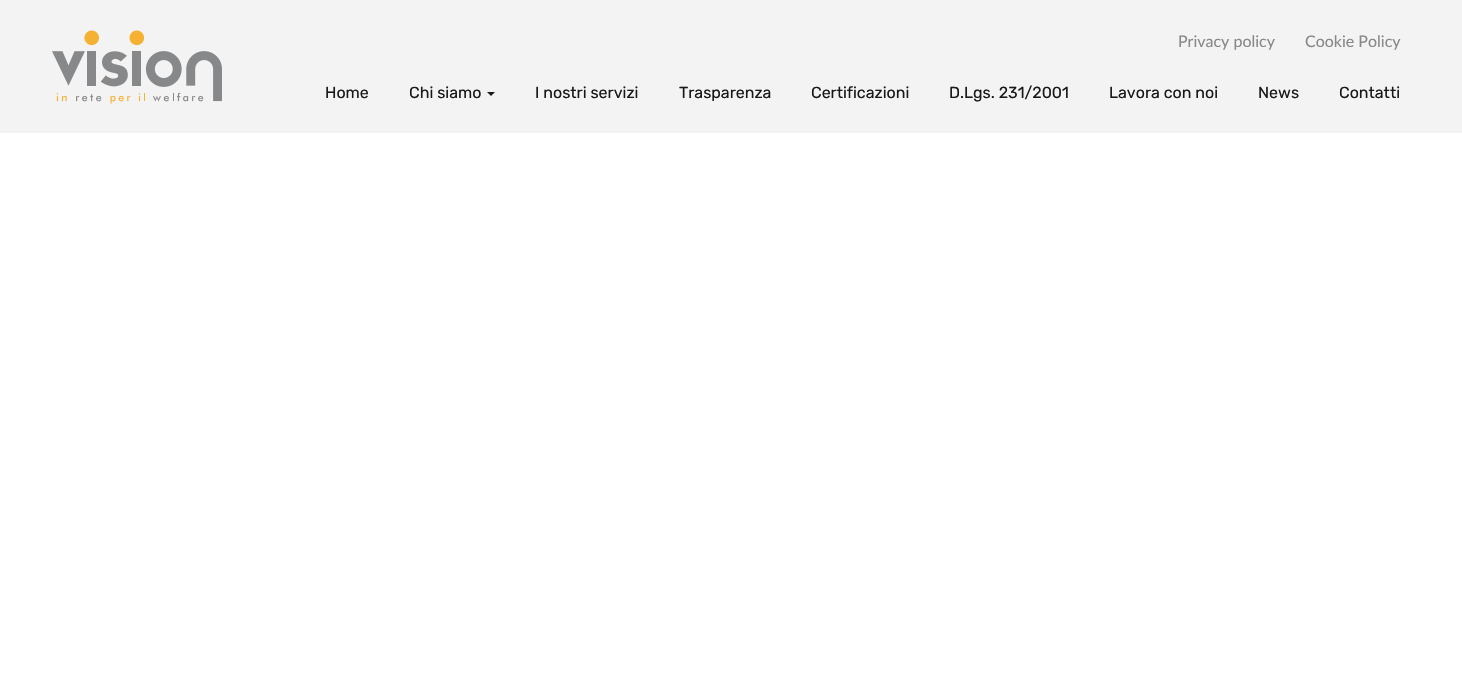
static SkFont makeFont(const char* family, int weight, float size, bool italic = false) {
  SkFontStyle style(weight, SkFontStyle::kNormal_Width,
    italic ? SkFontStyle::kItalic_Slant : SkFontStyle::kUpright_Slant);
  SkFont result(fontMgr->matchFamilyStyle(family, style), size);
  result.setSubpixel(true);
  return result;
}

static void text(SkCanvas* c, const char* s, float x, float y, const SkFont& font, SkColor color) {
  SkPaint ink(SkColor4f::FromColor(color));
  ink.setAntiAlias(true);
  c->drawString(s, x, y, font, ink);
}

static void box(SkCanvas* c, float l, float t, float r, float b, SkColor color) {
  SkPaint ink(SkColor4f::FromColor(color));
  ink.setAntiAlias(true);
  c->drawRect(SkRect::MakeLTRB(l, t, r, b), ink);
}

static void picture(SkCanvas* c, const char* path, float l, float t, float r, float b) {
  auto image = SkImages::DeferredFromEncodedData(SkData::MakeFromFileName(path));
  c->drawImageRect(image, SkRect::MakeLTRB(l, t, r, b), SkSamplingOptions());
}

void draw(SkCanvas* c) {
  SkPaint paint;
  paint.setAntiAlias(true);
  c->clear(0xffffffff);
  box(c, 0, 0, 1462, 133, 0xfff3f3f3);
  picture(c, "img_01.png", 52, 30, 222, 104);
  SkFont face1 = makeFont("Lato", 400, 16);
  text(c, "Privacy policy", 1178, 47, face1, 0xff898889);
  text(c, "Cookie Policy", 1305, 47, face1, 0xff898889);
  SkFont face2 = makeFont("Rubik", 400, 16);
  text(c, "Home", 325, 98, face2, 0xff191919);
  text(c, "Chi siamo", 409, 98, face2, 0xff191919);
  paint.setColor(0xff191919);
  c->drawPath(SkPathBuilder().moveTo(487, 92).lineTo(495, 92).lineTo(491, 96).close().detach(), paint);
  text(c, "I nostri servizi", 535, 98, face2, 0xff191919);
  text(c, "Trasparenza", 679, 98, face2, 0xff191919);
  text(c, "Certificazioni", 811, 98, face2, 0xff191919);
  text(c, "D.Lgs. 231/2001", 949, 98, face2, 0xff191919);
  text(c, "Lavora con noi", 1109, 98, face2, 0xff191919);
  text(c, "News", 1258, 98, face2, 0xff191919);
  text(c, "Contatti", 1339, 98, face2, 0xff191919);
}
